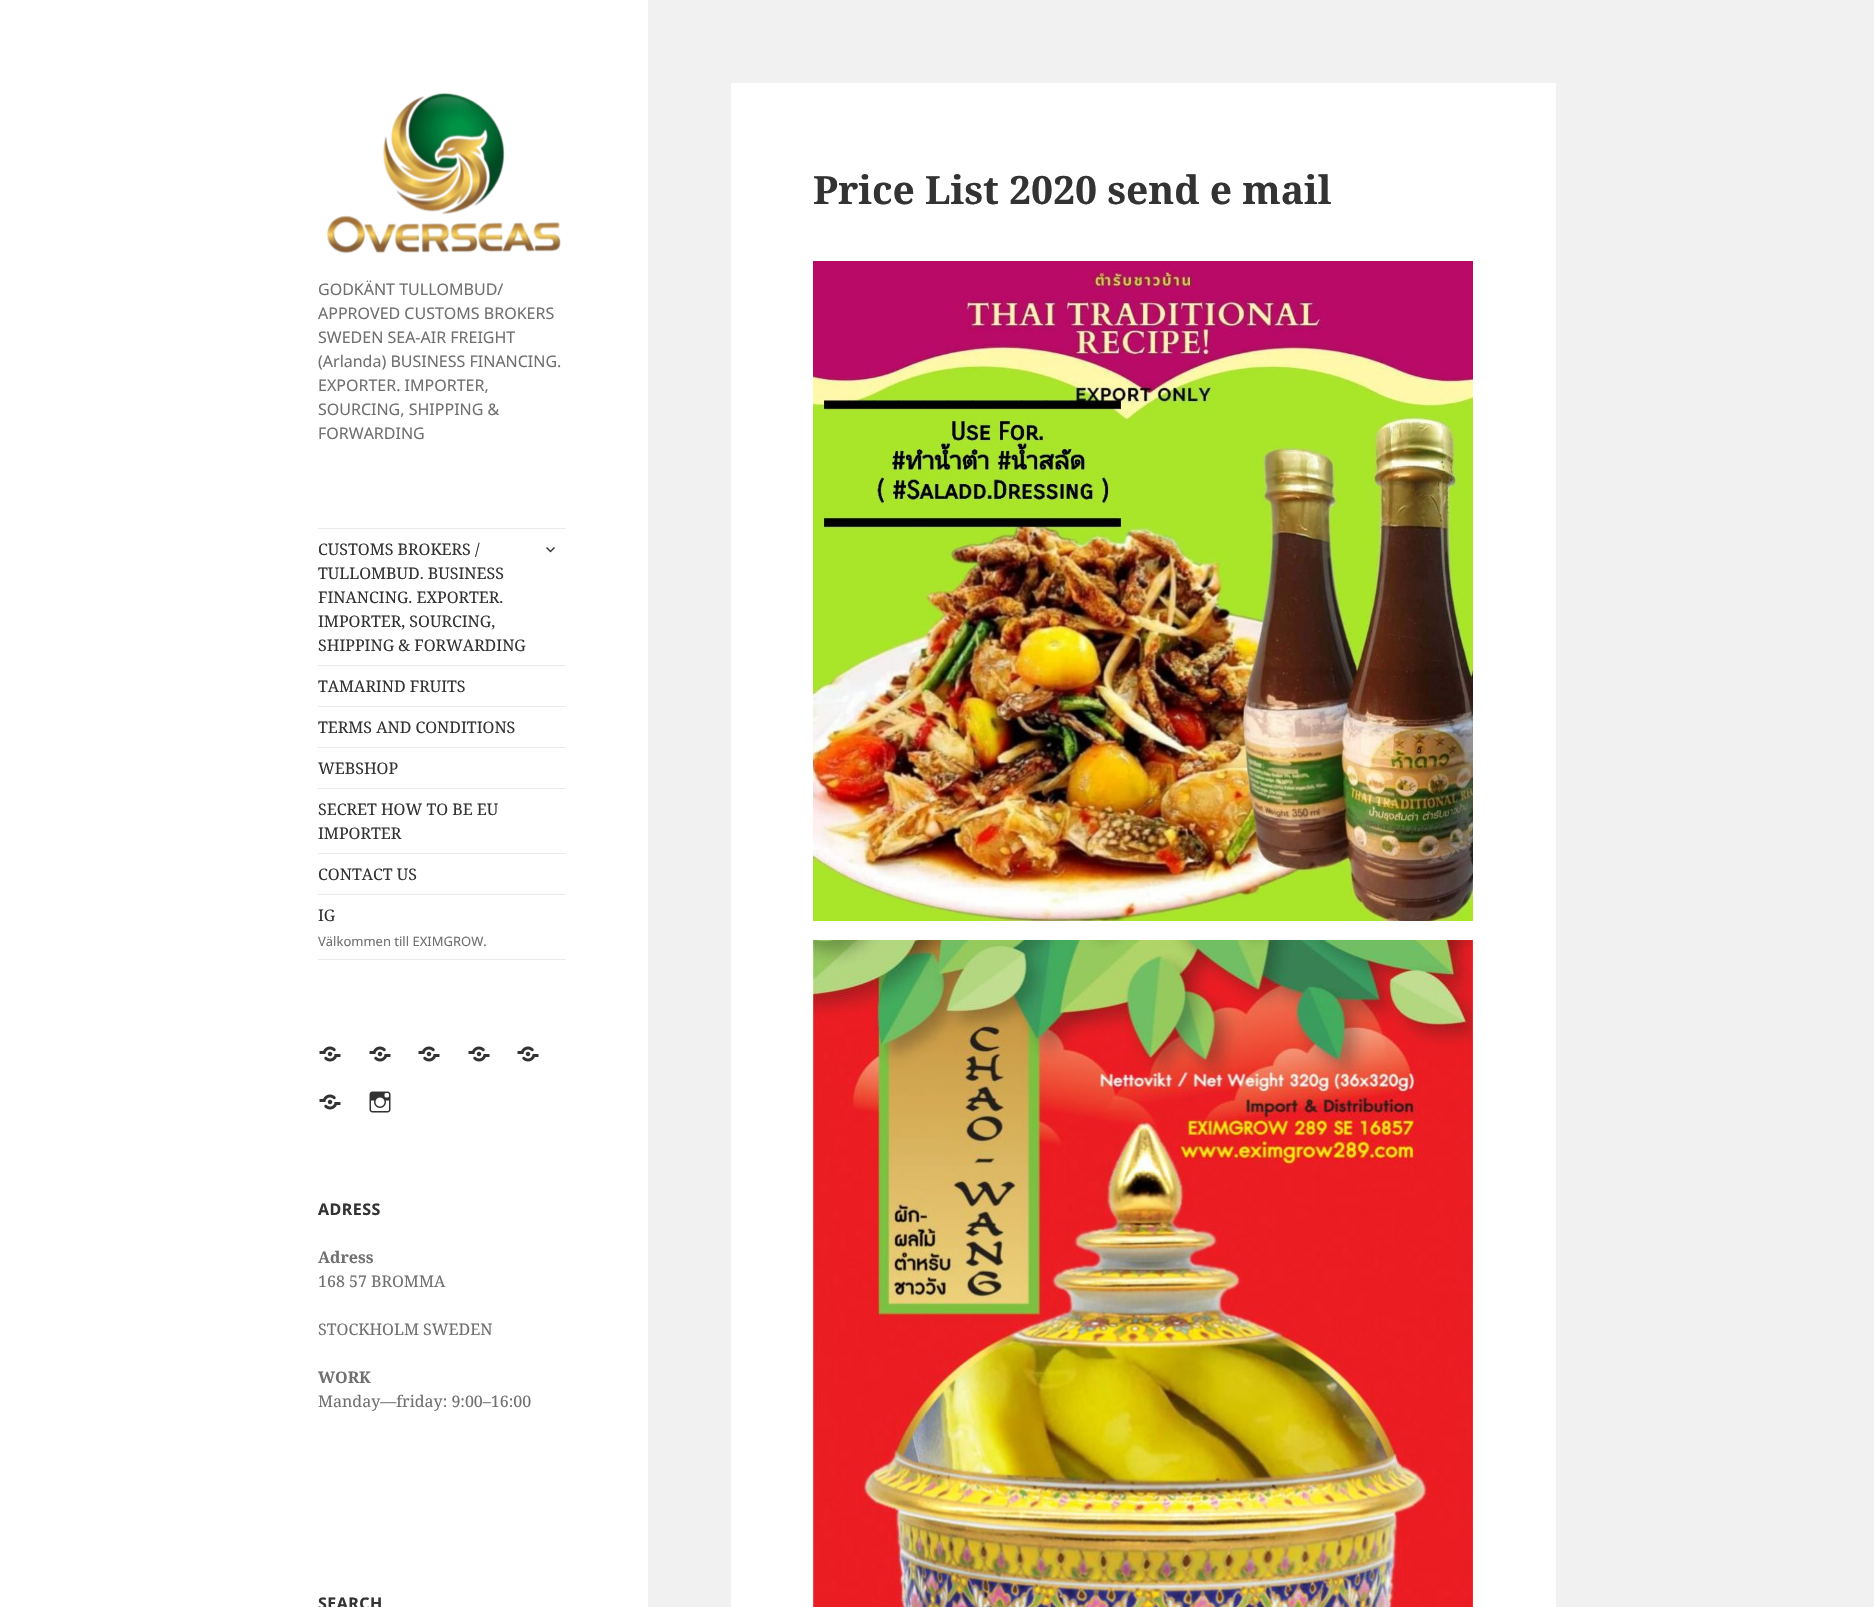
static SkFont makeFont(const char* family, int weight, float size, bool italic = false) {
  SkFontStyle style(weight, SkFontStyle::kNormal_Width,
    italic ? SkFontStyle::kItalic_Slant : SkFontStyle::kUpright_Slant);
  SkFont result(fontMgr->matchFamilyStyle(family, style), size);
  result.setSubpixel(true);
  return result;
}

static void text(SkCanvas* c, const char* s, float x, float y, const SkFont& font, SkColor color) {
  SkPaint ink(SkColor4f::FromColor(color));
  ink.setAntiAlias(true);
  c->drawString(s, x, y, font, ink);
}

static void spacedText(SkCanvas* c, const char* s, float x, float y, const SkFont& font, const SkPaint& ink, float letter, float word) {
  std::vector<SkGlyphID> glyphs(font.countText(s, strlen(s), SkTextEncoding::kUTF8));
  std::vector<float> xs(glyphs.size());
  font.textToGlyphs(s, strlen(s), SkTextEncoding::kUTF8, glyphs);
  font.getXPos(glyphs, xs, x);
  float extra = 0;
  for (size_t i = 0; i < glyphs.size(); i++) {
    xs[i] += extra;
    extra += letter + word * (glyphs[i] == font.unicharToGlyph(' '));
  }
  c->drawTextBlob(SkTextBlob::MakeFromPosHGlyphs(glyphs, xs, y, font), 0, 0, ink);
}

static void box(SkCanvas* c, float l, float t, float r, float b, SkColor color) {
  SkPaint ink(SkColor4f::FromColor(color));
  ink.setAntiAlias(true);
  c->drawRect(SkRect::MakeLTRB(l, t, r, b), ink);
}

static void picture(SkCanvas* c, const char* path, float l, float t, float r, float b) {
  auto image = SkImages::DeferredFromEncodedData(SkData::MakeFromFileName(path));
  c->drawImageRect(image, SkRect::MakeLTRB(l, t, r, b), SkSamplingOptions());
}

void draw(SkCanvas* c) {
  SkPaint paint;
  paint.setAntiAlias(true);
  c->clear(0xfff1f1f1);
  box(c, 0, 0, 648, 1607, 0xffffffff);
  box(c, 731, 83, 1556, 1607, 0xffffffff);
  SkFont face1 = makeFont("Noto Serif", 700, 39);
  text(c, "Price List 2020 send e mail", 813, 204, face1, 0xff333333);
  picture(c, "img_01.png", 813, 261, 1473, 921);
  picture(c, "img_02.png", 813, 940, 1473, 1607);
  picture(c, "img_03.png", 326, 93, 561, 254);
  SkFont face2 = makeFont("Noto Sans", 400, 16);
  text(c, "GODKÄNT TULLOMBUD/", 318, 295, face2, 0xff707070);
  text(c, "APPROVED CUSTOMS BROKERS", 318, 319, face2, 0xff707070);
  text(c, "SWEDEN SEA-AIR FREIGHT", 318, 343, face2, 0xff707070);
  text(c, "(Arlanda) BUSINESS FINANCING.", 318, 367, face2, 0xff707070);
  text(c, "EXPORTER. IMPORTER,", 318, 391, face2, 0xff707070);
  text(c, "SOURCING, SHIPPING &", 318, 415, face2, 0xff707070);
  text(c, "FORWARDING", 318, 439, face2, 0xff707070);
  box(c, 318, 528, 566, 529, 0xffebebeb);
  box(c, 318, 959, 566, 960, 0xffebebeb);
  SkFont face3 = makeFont("Noto Serif", 400, 16);
  text(c, "CUSTOMS BROKERS /", 318, 555, face3, 0xff333333);
  text(c, "TULLOMBUD. BUSINESS", 318, 579, face3, 0xff333333);
  text(c, "FINANCING. EXPORTER.", 318, 603, face3, 0xff333333);
  text(c, "IMPORTER, SOURCING,", 318, 627, face3, 0xff333333);
  text(c, "SHIPPING & FORWARDING", 318, 651, face3, 0xff333333);
  picture(c, "img_04.png", 546, 547, 555, 553);
  box(c, 318, 665, 566, 666, 0xffebebeb);
  text(c, "TAMARIND FRUITS", 318, 692, face3, 0xff333333);
  box(c, 318, 706, 566, 707, 0xffebebeb);
  text(c, "TERMS AND CONDITIONS", 318, 733, face3, 0xff333333);
  box(c, 318, 747, 566, 748, 0xffebebeb);
  text(c, "WEBSHOP", 318, 774, face3, 0xff333333);
  box(c, 318, 788, 566, 789, 0xffebebeb);
  text(c, "SECRET HOW TO BE EU", 318, 815, face3, 0xff333333);
  text(c, "IMPORTER", 318, 839, face3, 0xff333333);
  box(c, 318, 853, 566, 854, 0xffebebeb);
  text(c, "CONTACT US", 318, 880, face3, 0xff333333);
  box(c, 318, 894, 566, 895, 0xffebebeb);
  text(c, "IG", 318, 921, face3, 0xff333333);
  SkFont face4 = makeFont("Noto Sans", 400, 13);
  text(c, "Välkommen till EXIMGROW.", 318, 946, face4, 0xff707070);
  picture(c, "img_05.png", 319, 1046, 341, 1062);
  picture(c, "img_05.png", 369, 1046, 391, 1062);
  picture(c, "img_05.png", 418, 1046, 440, 1062);
  picture(c, "img_05.png", 468, 1046, 490, 1062);
  picture(c, "img_05.png", 517, 1046, 539, 1062);
  picture(c, "img_05.png", 319, 1094, 341, 1110);
  picture(c, "img_06.png", 369, 1091, 391, 1113);
  SkFont face5 = makeFont("Noto Sans", 700, 16);
  paint.setColor(0xff333333);
  spacedText(c, "ADRESS", 318, 1215, face5, paint, 0.5f, 0);
  SkFont face6 = makeFont("Noto Serif", 700, 16);
  text(c, "Adress", 318, 1263, face6, 0xff707070);
  text(c, "168 57 BROMMA", 318, 1287, face3, 0xff707070);
  text(c, "STOCKHOLM SWEDEN", 318, 1335, face3, 0xff707070);
  text(c, "WORK", 318, 1383, face6, 0xff707070);
  text(c, "Manday—friday: 9:00–16:00", 318, 1407, face3, 0xff707070);
  spacedText(c, "SEARCH", 318, 1609, face5, paint, 0.5f, 0);
}
